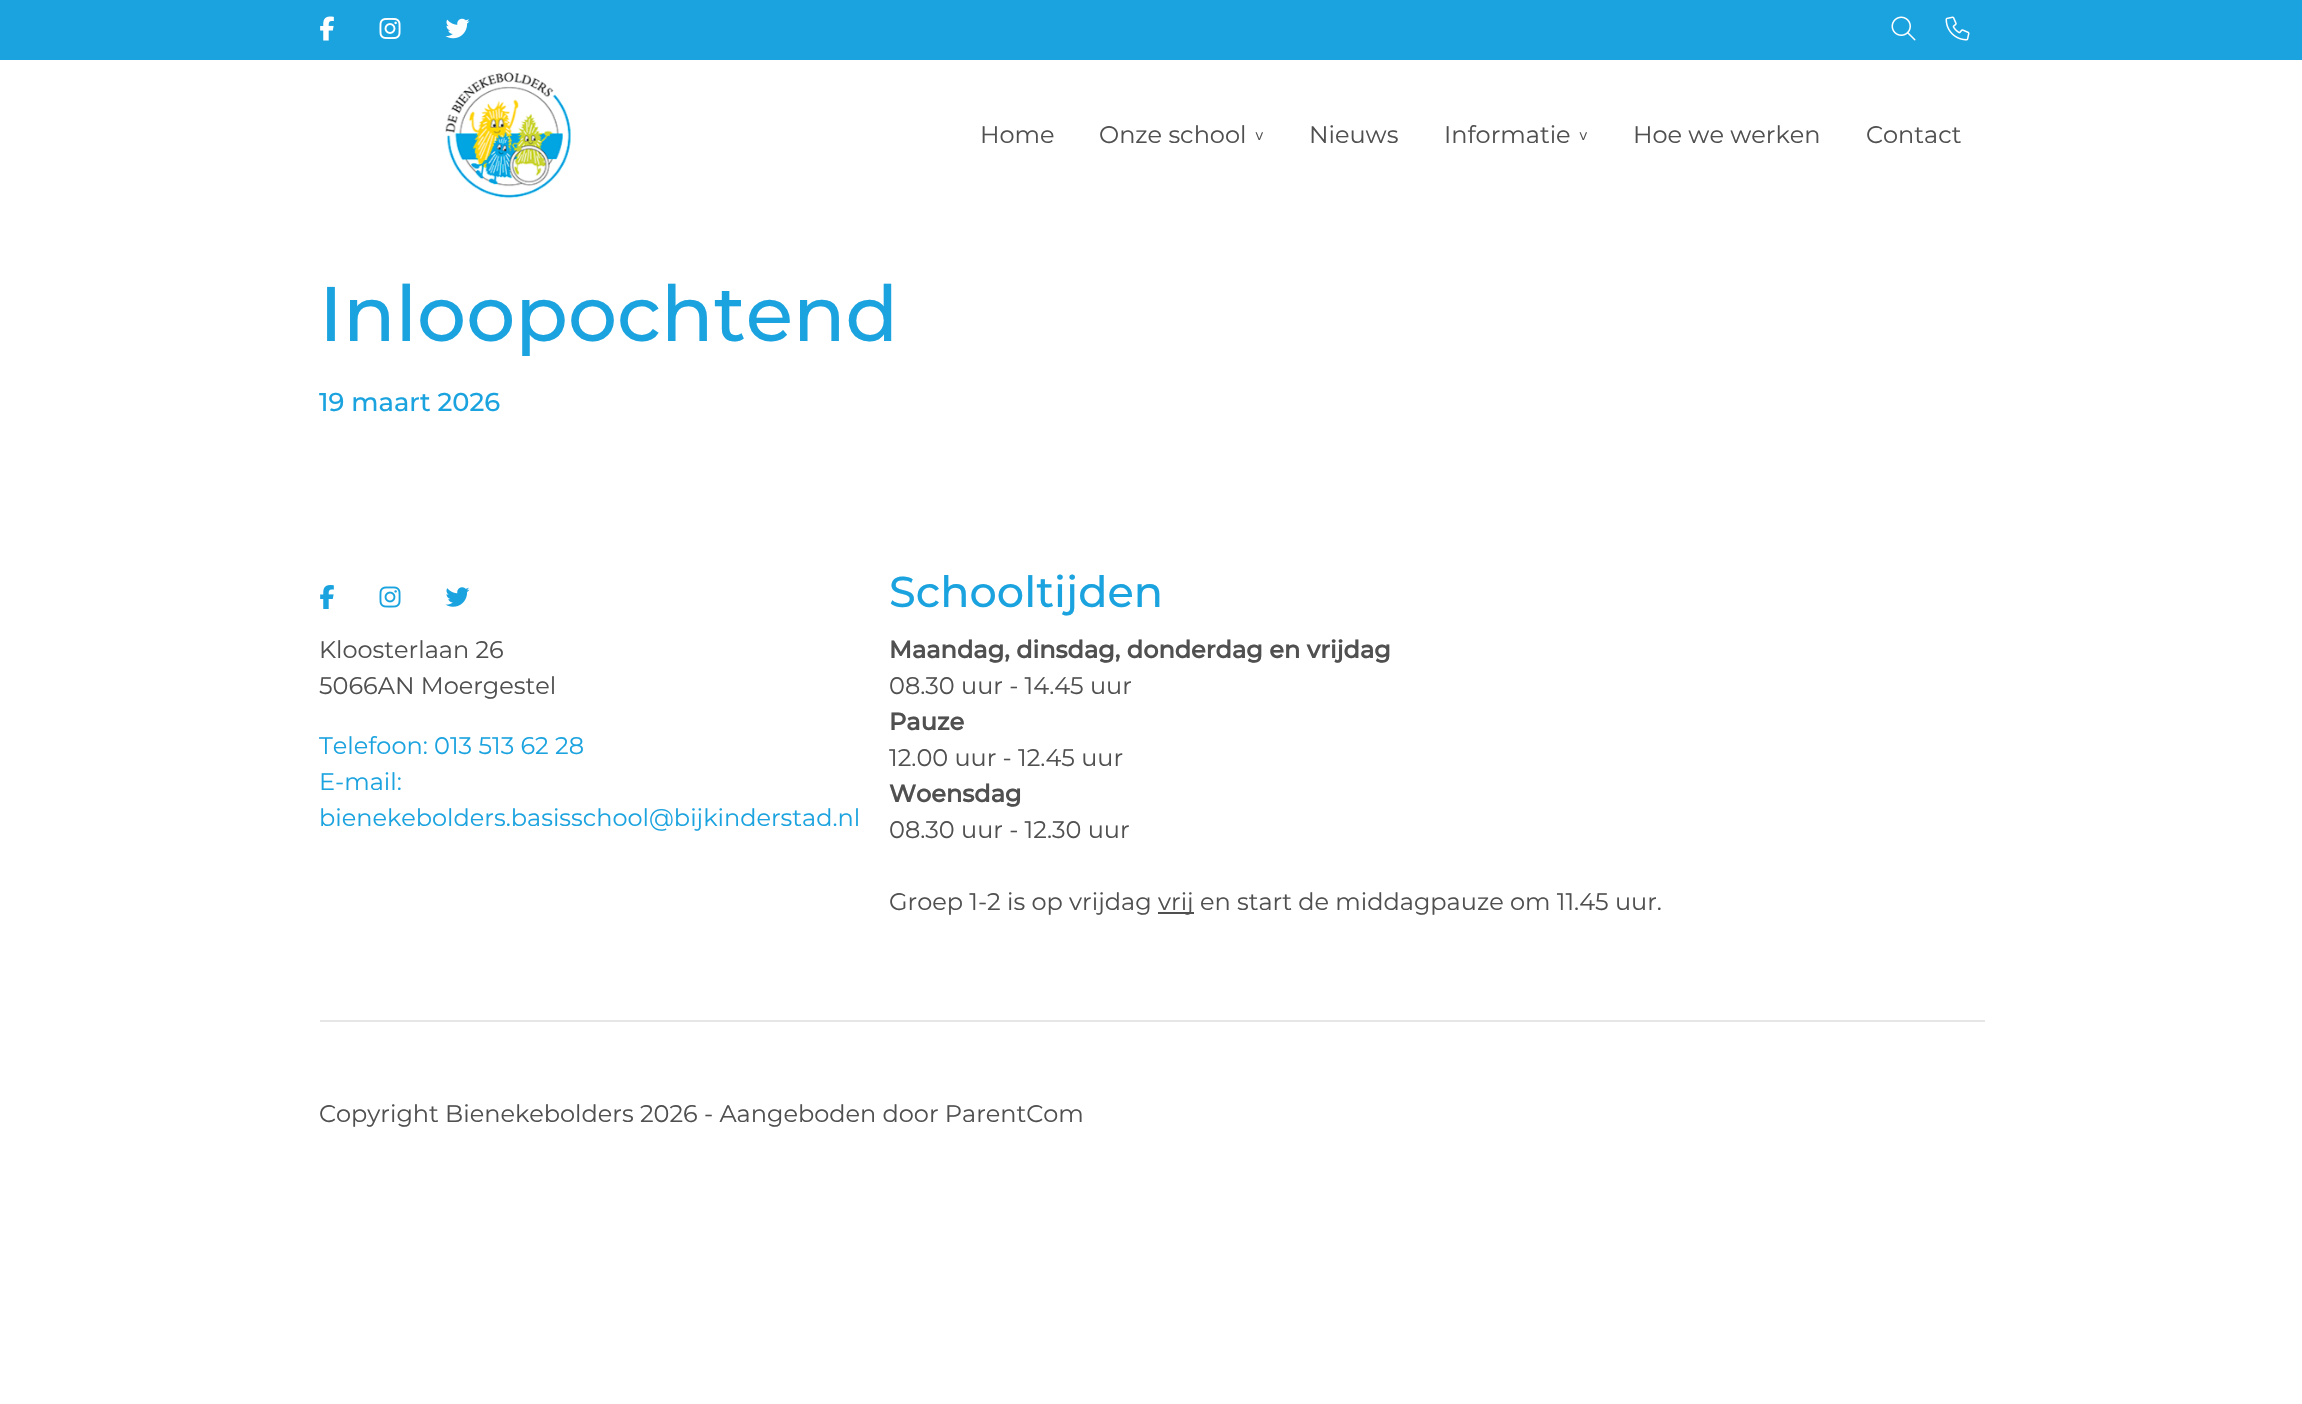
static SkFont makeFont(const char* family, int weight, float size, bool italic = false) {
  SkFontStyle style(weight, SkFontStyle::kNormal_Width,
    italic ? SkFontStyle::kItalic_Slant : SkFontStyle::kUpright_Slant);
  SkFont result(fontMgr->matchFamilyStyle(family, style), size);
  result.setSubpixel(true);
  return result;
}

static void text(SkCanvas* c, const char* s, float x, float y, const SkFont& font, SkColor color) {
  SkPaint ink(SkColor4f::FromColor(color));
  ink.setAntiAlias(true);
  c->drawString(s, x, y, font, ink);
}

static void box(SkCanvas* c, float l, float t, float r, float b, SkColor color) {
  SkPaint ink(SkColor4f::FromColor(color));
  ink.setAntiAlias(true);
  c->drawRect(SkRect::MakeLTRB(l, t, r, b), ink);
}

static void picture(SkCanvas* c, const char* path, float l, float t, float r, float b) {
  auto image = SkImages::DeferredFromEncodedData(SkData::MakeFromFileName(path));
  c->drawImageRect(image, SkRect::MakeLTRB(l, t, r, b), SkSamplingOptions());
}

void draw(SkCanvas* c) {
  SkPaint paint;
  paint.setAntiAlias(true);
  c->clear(0xffffffff);
  box(c, 0, 0, 2302, 60, 0xff1ba3df);
  picture(c, "img_01.png", 320, 16, 334, 41);
  picture(c, "img_02.png", 379, 18, 401, 39);
  picture(c, "img_03.png", 445, 18, 470, 39);
  picture(c, "img_04.png", 1891, 16, 1916, 41);
  picture(c, "img_05.png", 1945, 16, 1970, 41);
  picture(c, "img_06.png", 445, 72, 571, 199);
  SkFont face1 = makeFont("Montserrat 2", 100, 24);
  text(c, "Home", 980, 143, face1, 0xff505050);
  text(c, "Onze school", 1099, 143, face1, 0xff505050);
  SkFont face2 = makeFont("Montserrat 2", 100, 18);
  c->save();
  c->rotate(90, 1253, 131);
  text(c, ">", 1253, 131, face2, 0xff505050);
  c->restore();
  text(c, "Nieuws", 1309, 143, face1, 0xff505050);
  text(c, "Informatie", 1444, 143, face1, 0xff505050);
  c->save();
  c->rotate(90, 1577, 131);
  text(c, ">", 1577, 131, face2, 0xff505050);
  c->restore();
  text(c, "Hoe we werken", 1633, 143, face1, 0xff505050);
  text(c, "Contact", 1866, 143, face1, 0xff505050);
  SkFont face3 = makeFont("Montserrat", 100, 77.25f);
  text(c, "Inloopochtend", 319, 341, face3, 0xff1ba3df);
  SkFont face4 = makeFont("Montserrat", 100, 25.75f);
  text(c, "19 maart 2026", 319, 411, face4, 0xff1ba3df);
  picture(c, "img_07.png", 320, 585, 334, 609);
  picture(c, "img_08.png", 379, 586, 401, 608);
  picture(c, "img_09.png", 445, 587, 470, 607);
  text(c, "Kloosterlaan 26", 319, 658, face1, 0xff505050);
  text(c, "5066AN Moergestel", 319, 694, face1, 0xff505050);
  text(c, "Telefoon: 013 513 62 28", 319, 754, face1, 0xff1ba3df);
  text(c, "E-mail:", 319, 790, face1, 0xff1ba3df);
  text(c, "bienekebolders.basisschool@bijkinderstad.nl", 319, 826, face1, 0xff1ba3df);
  SkFont face5 = makeFont("Montserrat", 100, 43);
  text(c, "Schooltijden", 889, 607, face5, 0xff1ba3df);
  SkFont face6 = makeFont("Montserrat", 700, 24);
  text(c, "Maandag, dinsdag, donderdag en vrijdag", 889, 658, face6, 0xff505050);
  text(c, "08.30 uur - 14.45 uur", 889, 694, face1, 0xff505050);
  text(c, "Pauze", 889, 730, face6, 0xff505050);
  text(c, "12.00 uur - 12.45 uur", 889, 766, face1, 0xff505050);
  text(c, "Woensdag", 889, 802, face6, 0xff505050);
  text(c, "08.30 uur - 12.30 uur", 889, 838, face1, 0xff505050);
  text(c, "Groep 1-2 is op vrijdag", 889, 910, face1, 0xff505050);
  box(c, 1158, 912, 1194, 914, 0xff505050);
  text(c, "vrij en start de middagpauze om 11.45 uur.", 1158, 910, face1, 0xff505050);
  box(c, 320, 1020, 1985, 1022, 0xffe6e6e6);
  text(c, "Copyright Bienekebolders 2026 - Aangeboden door ParentCom", 319, 1122, face1, 0xff505050);
}
